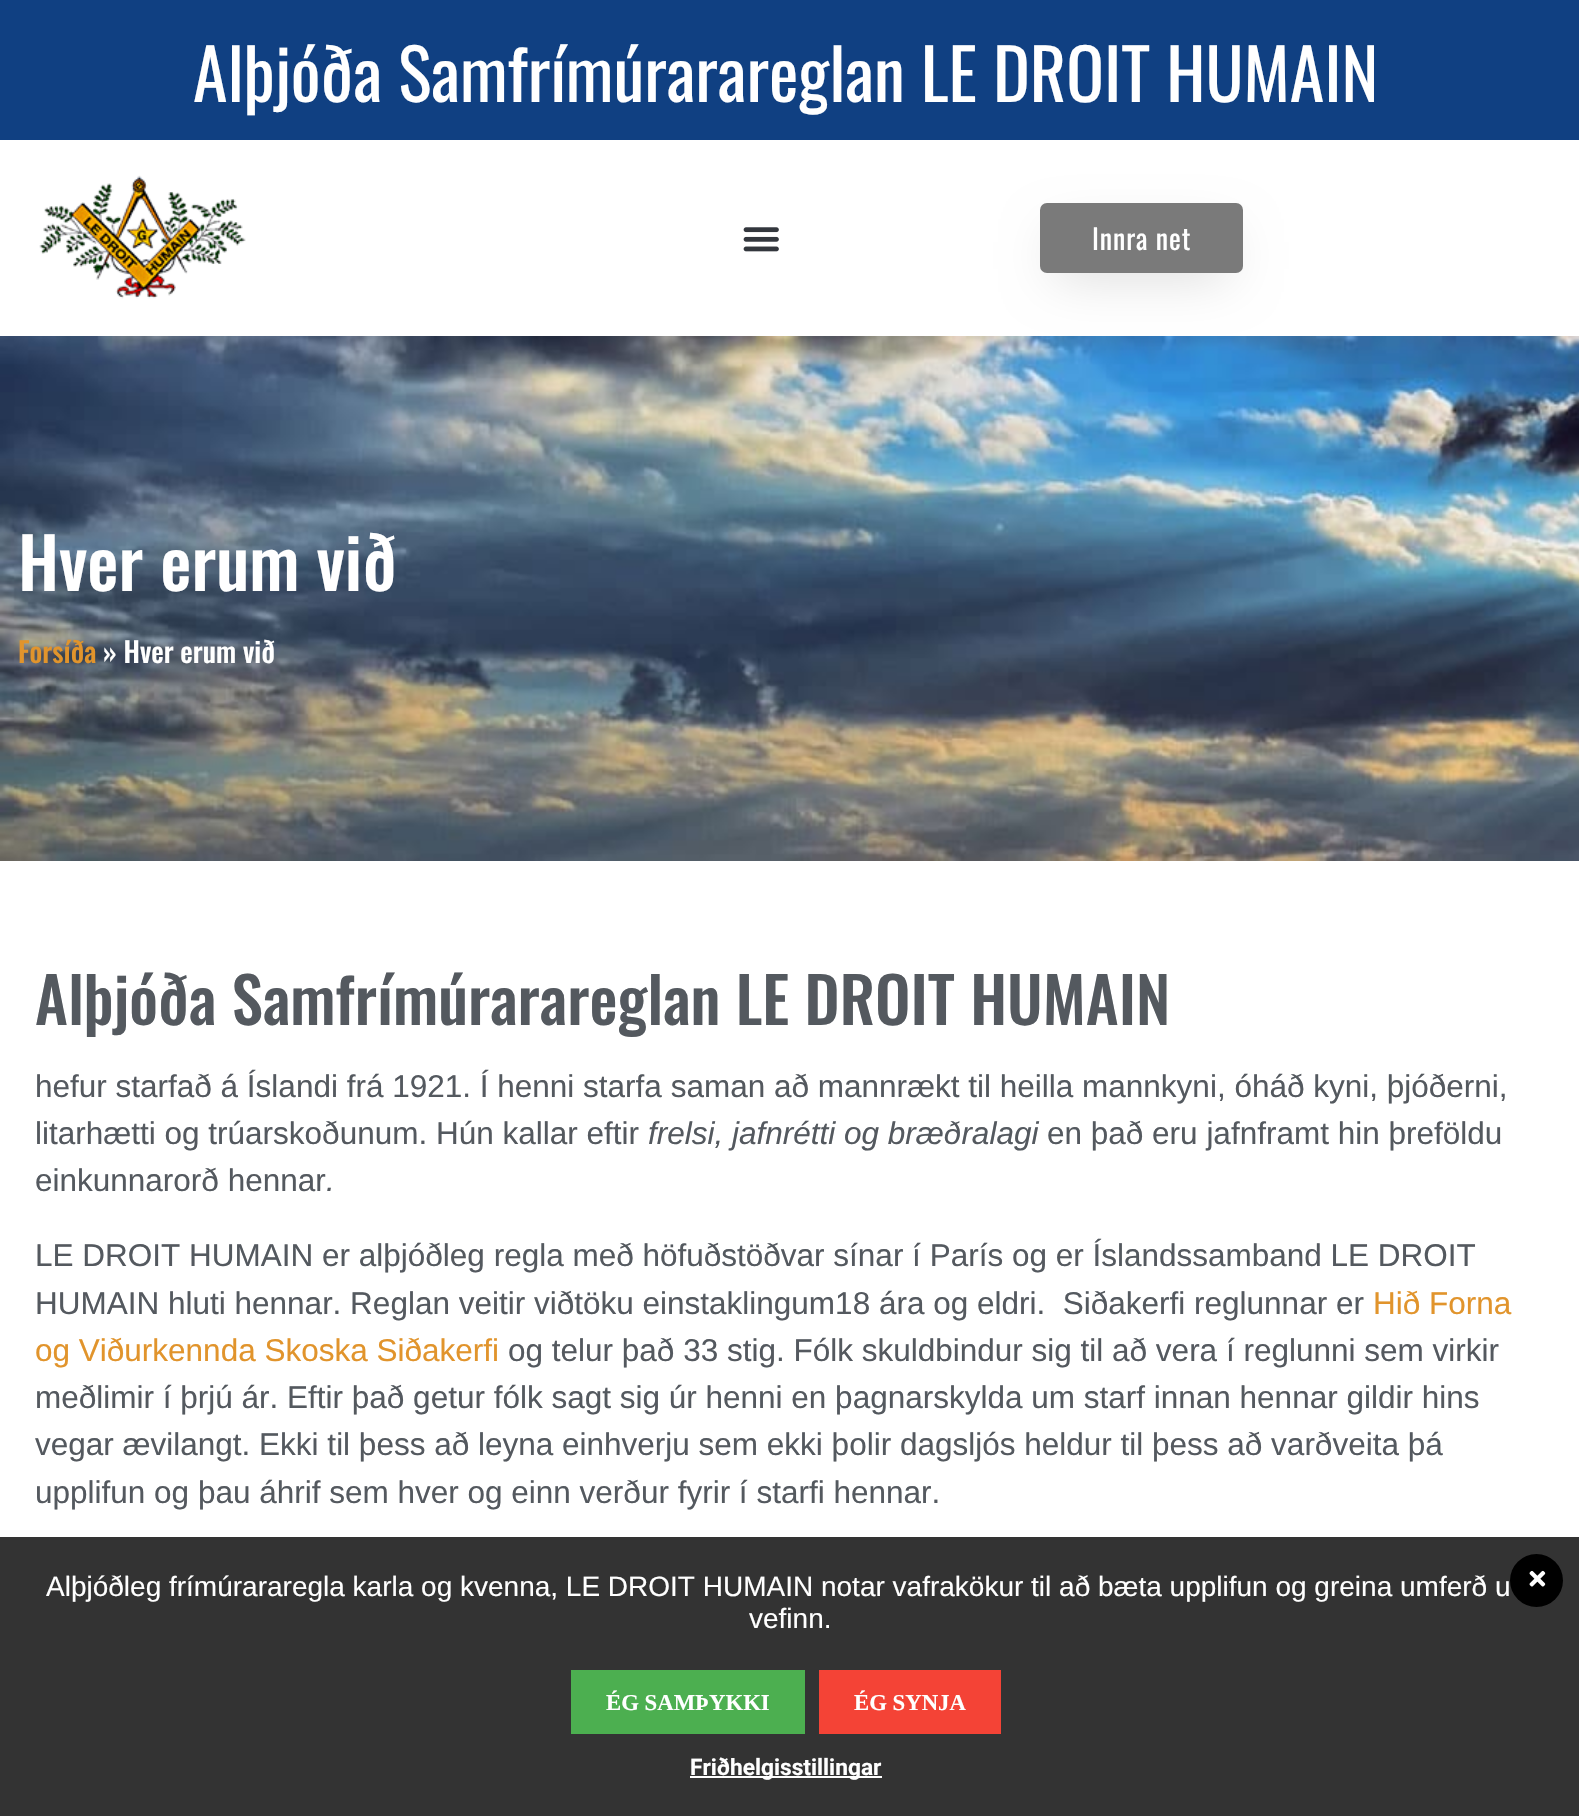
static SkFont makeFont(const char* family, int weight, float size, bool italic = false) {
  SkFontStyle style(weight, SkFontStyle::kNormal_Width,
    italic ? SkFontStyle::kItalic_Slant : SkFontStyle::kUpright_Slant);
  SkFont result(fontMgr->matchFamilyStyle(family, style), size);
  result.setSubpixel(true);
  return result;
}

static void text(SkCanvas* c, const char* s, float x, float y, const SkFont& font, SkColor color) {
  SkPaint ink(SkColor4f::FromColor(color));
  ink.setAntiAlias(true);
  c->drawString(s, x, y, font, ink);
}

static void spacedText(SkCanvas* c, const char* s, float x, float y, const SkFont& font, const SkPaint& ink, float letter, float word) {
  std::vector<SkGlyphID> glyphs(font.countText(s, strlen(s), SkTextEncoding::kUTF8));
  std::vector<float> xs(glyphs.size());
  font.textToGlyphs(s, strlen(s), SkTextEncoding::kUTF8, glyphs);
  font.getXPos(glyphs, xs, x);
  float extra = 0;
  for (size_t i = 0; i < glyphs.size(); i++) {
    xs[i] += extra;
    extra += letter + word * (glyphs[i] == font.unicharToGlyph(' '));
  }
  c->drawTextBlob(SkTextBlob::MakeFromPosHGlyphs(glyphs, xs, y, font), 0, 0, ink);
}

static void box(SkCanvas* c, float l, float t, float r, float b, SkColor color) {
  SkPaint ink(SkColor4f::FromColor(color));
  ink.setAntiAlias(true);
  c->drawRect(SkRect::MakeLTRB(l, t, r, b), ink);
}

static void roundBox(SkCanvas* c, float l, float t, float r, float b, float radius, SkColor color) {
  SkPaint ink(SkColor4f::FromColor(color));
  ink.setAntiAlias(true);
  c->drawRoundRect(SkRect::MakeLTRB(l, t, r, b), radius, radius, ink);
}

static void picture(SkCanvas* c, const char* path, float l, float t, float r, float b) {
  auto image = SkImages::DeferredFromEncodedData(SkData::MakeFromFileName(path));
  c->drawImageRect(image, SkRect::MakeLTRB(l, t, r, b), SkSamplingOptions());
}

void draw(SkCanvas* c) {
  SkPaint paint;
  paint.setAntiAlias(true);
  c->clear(0xffffffff);
  box(c, 0, 0, 1579, 140, 0xff104082);
  SkFont face1 = makeFont("Oswald", 400, 70);
  text(c, "Alþjóða Samfrímúrarareglan LE DROIT HUMAIN", 193, 102, face1, 0xffffffff);
  picture(c, "img_01.png", 39, 175, 246, 299);
  picture(c, "img_02.png", 743, 227, 779, 252);
  paint.setColor(0x29000000);
  paint.setMaskFilter(SkMaskFilter::MakeBlur(kNormal_SkBlurStyle, 26));
  c->drawRect(SkRect::MakeLTRB(1055, 236, 1227, 275), paint);
  paint.setMaskFilter(nullptr);
  roundBox(c, 1040, 203, 1243, 273, 7, 0xff7a7a7a);
  SkFont face2 = makeFont("Oswald", 400, 28);
  paint.setColor(0xffffffff);
  spacedText(c, "Innra net", 1092, 250, face2, paint, 0.9f, 0);
  picture(c, "img_03.png", 0, 336, 1579, 861);
  SkFont face3 = makeFont("Oswald", 500, 70);
  text(c, "Hver erum við", 18, 591, face3, 0xffffffff);
  SkFont face4 = makeFont("Oswald", 500, 28);
  text(c, "Forsíða", 18, 663, face4, 0xffe1942c);
  text(c, "» Hver erum við", 103, 663, face4, 0xffffffff);
  SkFont face5 = makeFont("Oswald", 500, 63);
  text(c, "Alþjóða Samfrímúrarareglan LE DROIT HUMAIN", 35, 1025, face5, 0xff54595f);
  SkFont face6 = makeFont("Liberation Sans", 400, 31.5f);
  text(c, "hefur starfað á Íslandi frá 1921. Í henni starfa saman að mannrækt til heilla mannkyni, óháð kyni, þjóðerni,", 35, 1097, face6, 0xff54595f);
  text(c, "litarhætti og trúarskoðunum. Hún kallar eftir", 35, 1144, face6, 0xff54595f);
  SkFont face7 = makeFont("Liberation Sans", 400, 31.5f, true);
  text(c, "frelsi, jafnrétti og bræðralagi", 648, 1144, face7, 0xff54595f);
  text(c, "en það eru jafnframt hin þreföldu", 1047, 1144, face6, 0xff54595f);
  text(c, "einkunnarorð hennar", 35, 1191, face6, 0xff54595f);
  text(c, ".", 326, 1191, face7, 0xff54595f);
  text(c, "LE DROIT HUMAIN er alþjóðleg regla með höfuðstöðvar sínar í París og er Íslandssamband LE DROIT", 35, 1266, face6, 0xff54595f);
  text(c, "HUMAIN hluti hennar. Reglan veitir viðtöku einstaklingum18 ára og eldri.  Siðakerfi reglunnar er", 35, 1314, face6, 0xff54595f);
  text(c, "Hið Forna", 1373, 1314, face6, 0xffe1942c);
  text(c, "og Viðurkennda Skoska Siðakerfi", 35, 1361, face6, 0xffe1942c);
  text(c, "og telur það 33 stig. Fólk skuldbindur sig til að vera í reglunni sem virkir", 508, 1361, face6, 0xff54595f);
  text(c, "meðlimir í þrjú ár. Eftir það getur fólk sagt sig úr henni en þagnarskylda um starf innan hennar gildir hins", 35, 1408, face6, 0xff54595f);
  text(c, "vegar ævilangt. Ekki til þess að leyna einhverju sem ekki þolir dagsljós heldur til þess að varðveita þá", 35, 1455, face6, 0xff54595f);
  text(c, "upplifun og þau áhrif sem hver og einn verður fyrir í starfi hennar.", 35, 1503, face6, 0xff54595f);
  box(c, 0, 1537, 1579, 1816, 0xff333333);
  SkFont face8 = makeFont("Liberation Sans", 400, 28);
  text(c, "Alþjóðleg frímúrararegla karla og kvenna, LE DROIT HUMAIN notar vafrakökur til að bæta upplifun og greina umferð u", 46, 1596, face8, 0xffffffff);
  text(c, "vefinn.", 749, 1628, face8, 0xffffffff);
  paint.setColor(0xff000000);
  c->drawCircle(1536.5f, 1580.5f, 26.5f, paint);
  picture(c, "img_04.png", 1529, 1570, 1546, 1587);
  box(c, 571, 1670, 805, 1734, 0xff4caf50);
  SkFont face9 = makeFont("Liberation Serif", 700, 22.75f);
  text(c, "ÉG SAMÞYKKI", 606, 1710, face9, 0xffffffff);
  box(c, 819, 1670, 1001, 1734, 0xfff44336);
  text(c, "ÉG SYNJA", 854, 1710, face9, 0xffffffff);
  box(c, 690, 1776, 882, 1778, 0xffffffff);
  SkFont face10 = makeFont("Roboto", 700, 22.75f);
  text(c, "Friðhelgisstillingar", 690, 1775, face10, 0xffffffff);
}
